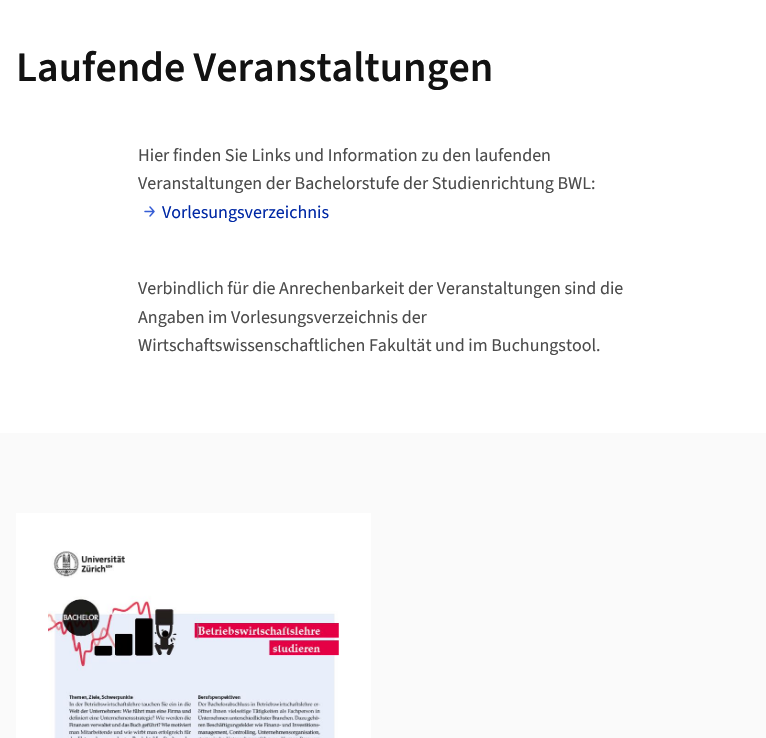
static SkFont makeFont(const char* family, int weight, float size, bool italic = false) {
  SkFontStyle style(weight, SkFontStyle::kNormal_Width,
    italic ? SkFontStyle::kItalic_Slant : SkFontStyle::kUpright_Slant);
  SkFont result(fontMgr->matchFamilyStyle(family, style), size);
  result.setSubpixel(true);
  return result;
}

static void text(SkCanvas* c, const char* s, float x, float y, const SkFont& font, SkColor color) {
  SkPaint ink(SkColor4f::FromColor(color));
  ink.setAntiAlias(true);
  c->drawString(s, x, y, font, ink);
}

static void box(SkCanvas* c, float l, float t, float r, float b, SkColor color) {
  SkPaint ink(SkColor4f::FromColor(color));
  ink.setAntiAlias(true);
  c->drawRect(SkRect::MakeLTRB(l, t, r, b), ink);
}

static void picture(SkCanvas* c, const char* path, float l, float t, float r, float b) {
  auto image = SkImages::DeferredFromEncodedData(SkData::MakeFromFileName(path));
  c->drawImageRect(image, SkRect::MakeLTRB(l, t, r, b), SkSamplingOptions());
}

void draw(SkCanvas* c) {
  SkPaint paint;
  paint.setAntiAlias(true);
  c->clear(0xffffffff);
  SkFont face1 = makeFont("Source Sans 3", 600, 42);
  text(c, "Laufende Veranstaltungen", 16, 81, face1, 0xff121212);
  SkFont face2 = makeFont("Source Sans 3", 400, 18);
  text(c, "Hier finden Sie Links und Information zu den laufenden", 138, 161, face2, 0xff4c4c4c);
  text(c, "Veranstaltungen der Bachelorstufe der Studienrichtung BWL:", 138, 189, face2, 0xff4c4c4c);
  picture(c, "img_01.png", 144, 206, 155, 217);
  text(c, "Vorlesungsverzeichnis", 162, 218, face2, 0xff0028a5);
  text(c, "Verbindlich für die Anrechenbarkeit der Veranstaltungen sind die", 138, 294, face2, 0xff4c4c4c);
  text(c, "Angaben im Vorlesungsverzeichnis der", 138, 323, face2, 0xff4c4c4c);
  text(c, "Wirtschaftswissenschaftlichen Fakultät und im Buchungstool.", 138, 351, face2, 0xff4c4c4c);
  box(c, 0, 433, 766, 738, 0xfffafafa);
  box(c, 16, 513, 371, 738, 0xffffffff);
  picture(c, "img_02.png", 48, 550, 339, 738);
}
